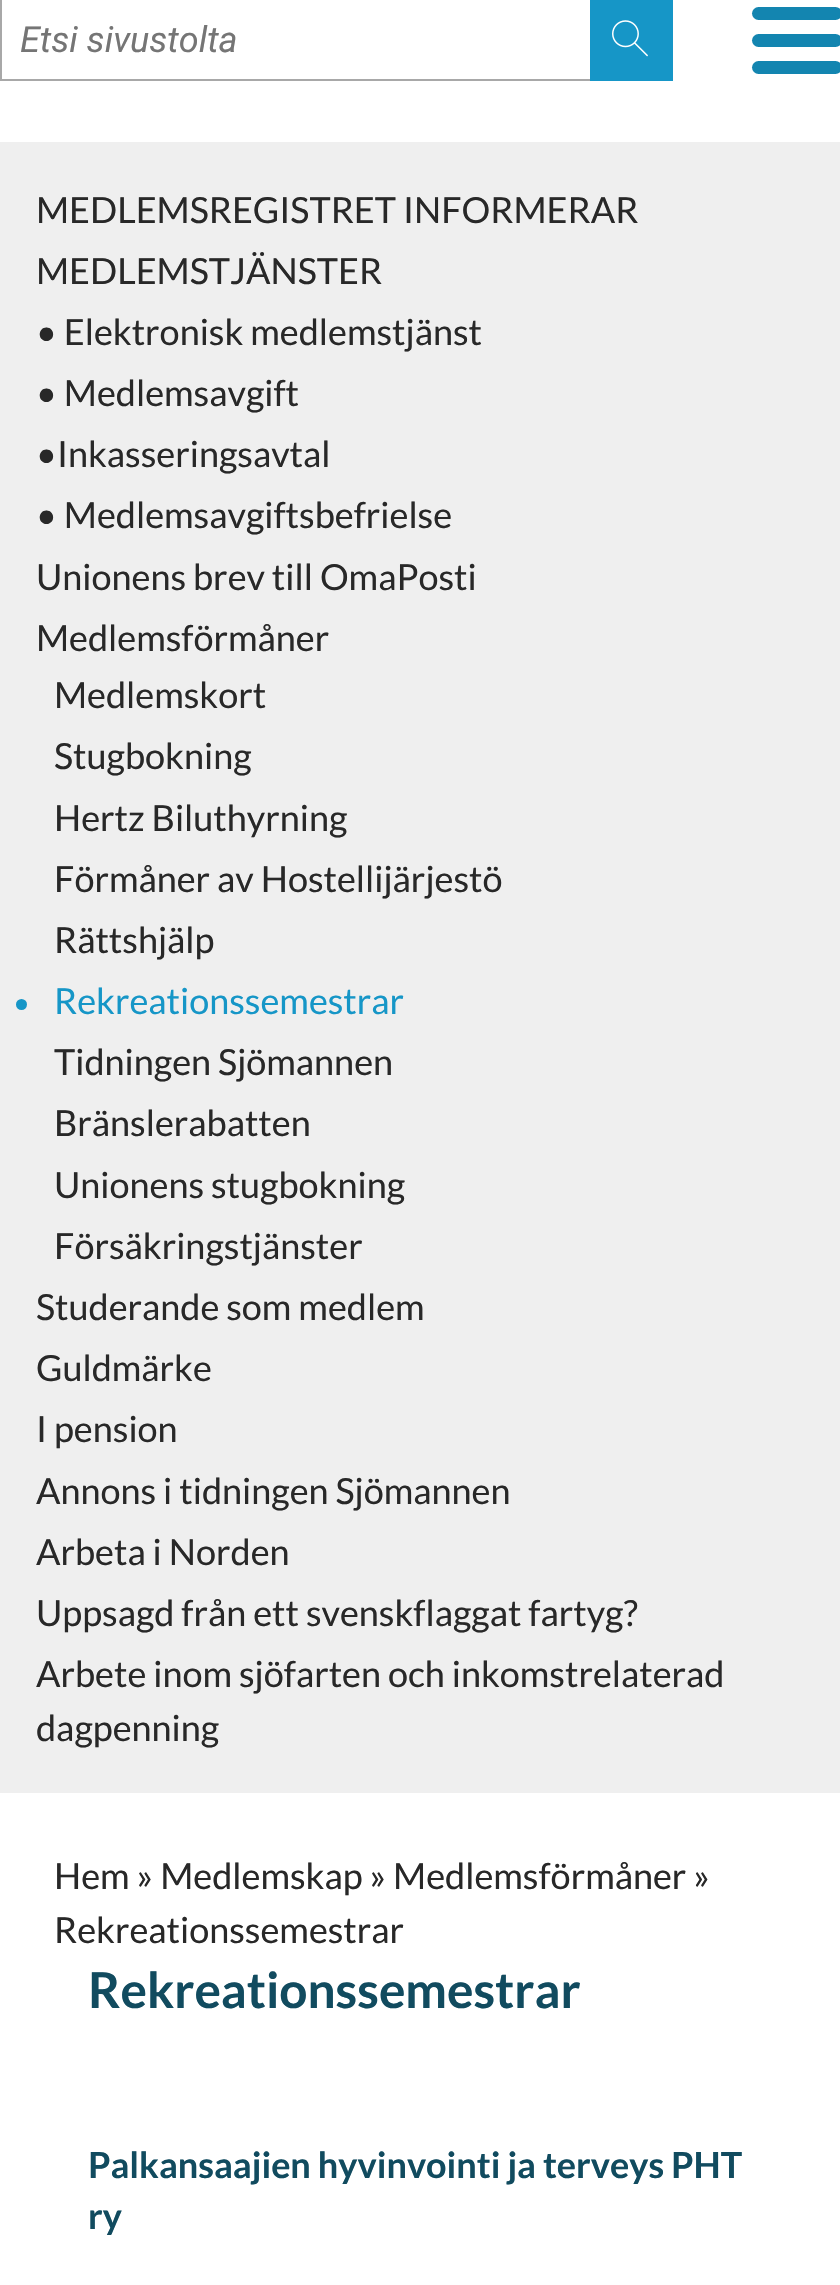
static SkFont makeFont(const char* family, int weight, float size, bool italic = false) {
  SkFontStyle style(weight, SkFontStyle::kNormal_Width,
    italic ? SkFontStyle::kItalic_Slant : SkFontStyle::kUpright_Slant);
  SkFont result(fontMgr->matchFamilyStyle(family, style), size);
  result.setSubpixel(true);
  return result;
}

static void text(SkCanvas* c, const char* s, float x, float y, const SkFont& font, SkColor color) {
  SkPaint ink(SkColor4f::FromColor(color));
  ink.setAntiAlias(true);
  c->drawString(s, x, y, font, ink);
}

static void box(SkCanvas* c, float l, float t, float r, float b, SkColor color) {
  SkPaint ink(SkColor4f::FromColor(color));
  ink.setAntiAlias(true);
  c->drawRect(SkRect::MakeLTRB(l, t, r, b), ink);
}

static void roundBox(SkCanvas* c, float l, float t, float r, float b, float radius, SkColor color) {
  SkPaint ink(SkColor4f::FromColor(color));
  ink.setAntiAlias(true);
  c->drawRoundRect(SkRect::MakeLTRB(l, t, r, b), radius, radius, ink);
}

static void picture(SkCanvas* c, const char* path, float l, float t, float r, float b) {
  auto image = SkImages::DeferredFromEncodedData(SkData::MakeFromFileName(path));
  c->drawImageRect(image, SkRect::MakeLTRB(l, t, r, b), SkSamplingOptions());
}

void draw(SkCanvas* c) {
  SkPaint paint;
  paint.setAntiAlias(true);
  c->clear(0xffffffff);
  paint.setStyle(SkPaint::kStroke_Style);
  paint.setStrokeWidth(2);
  paint.setColor(0xffa8a8a8);
  c->drawRect(SkRect::MakeLTRB(1, -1, 672, 80), paint);
  SkFont face1 = makeFont("Roboto", 400, 36, true);
  text(c, "Etsi sivustolta", 20, 52, face1, 0xff757575);
  box(c, 590, 0, 673, 81, 0xff1696c7);
  picture(c, "img_01.png", 612, 20, 648, 57);
  roundBox(c, 752, 7, 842, 20, 6.5f, 0xff1385b0);
  roundBox(c, 752, 34, 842, 47, 6.5f, 0xff1385b0);
  roundBox(c, 752, 61, 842, 74, 6.5f, 0xff1385b0);
  box(c, 0, 142, 840, 1793, 0xffefefef);
  SkFont face2 = makeFont("Lato", 400, 36);
  text(c, "MEDLEMSREGISTRET INFORMERAR", 36, 223, face2, 0xff282828);
  text(c, "MEDLEMSTJÄNSTER", 36, 284, face2, 0xff282828);
  text(c, "• Elektronisk medlemstjänst", 36, 345, face2, 0xff282828);
  text(c, "• Medlemsavgift", 36, 406, face2, 0xff282828);
  text(c, "•Inkasseringsavtal", 36, 467, face2, 0xff282828);
  text(c, "• Medlemsavgiftsbefrielse", 36, 528, face2, 0xff282828);
  text(c, "Unionens brev till OmaPosti", 36, 590, face2, 0xff282828);
  text(c, "Medlemsförmåner", 36, 651, face2, 0xff282828);
  text(c, "Medlemskort", 54, 708, face2, 0xff282828);
  text(c, "Stugbokning", 54, 769, face2, 0xff282828);
  text(c, "Hertz Biluthyrning", 54, 831, face2, 0xff282828);
  text(c, "Förmåner av Hostellijärjestö", 54, 892, face2, 0xff282828);
  text(c, "Rättshjälp", 54, 953, face2, 0xff282828);
  paint.setStyle(SkPaint::kFill_Style);
  paint.setColor(0xff1696c7);
  c->drawCircle(21.5f, 1004.5f, 5.5f, paint);
  text(c, "Rekreationssemestrar", 54, 1014, face2, 0xff1696c7);
  text(c, "Tidningen Sjömannen", 54, 1075, face2, 0xff282828);
  text(c, "Bränslerabatten", 54, 1136, face2, 0xff282828);
  text(c, "Unionens stugbokning", 54, 1198, face2, 0xff282828);
  text(c, "Försäkringstjänster", 54, 1259, face2, 0xff282828);
  text(c, "Studerande som medlem", 36, 1320, face2, 0xff282828);
  text(c, "Guldmärke", 36, 1381, face2, 0xff282828);
  text(c, "I pension", 36, 1442, face2, 0xff282828);
  text(c, "Annons i tidningen Sjömannen", 36, 1504, face2, 0xff282828);
  text(c, "Arbeta i Norden", 36, 1565, face2, 0xff282828);
  text(c, "Uppsagd från ett svenskflaggat fartyg?", 36, 1626, face2, 0xff282828);
  text(c, "Arbete inom sjöfarten och inkomstrelaterad", 36, 1687, face2, 0xff282828);
  text(c, "dagpenning", 36, 1741, face2, 0xff282828);
  text(c, "Hem » Medlemskap » Medlemsförmåner »", 54, 1889, face2, 0xff282828);
  text(c, "Rekreationssemestrar", 54, 1943, face2, 0xff282828);
  SkFont face3 = makeFont("Lato", 700, 49.5f);
  text(c, "Rekreationssemestrar", 88, 2008, face3, 0xff114b5f);
  SkFont face4 = makeFont("Lato", 700, 36);
  text(c, "Palkansaajien hyvinvointi ja terveys PHT", 88, 2178, face4, 0xff114b5f);
  text(c, "ry", 88, 2229, face4, 0xff114b5f);
}
